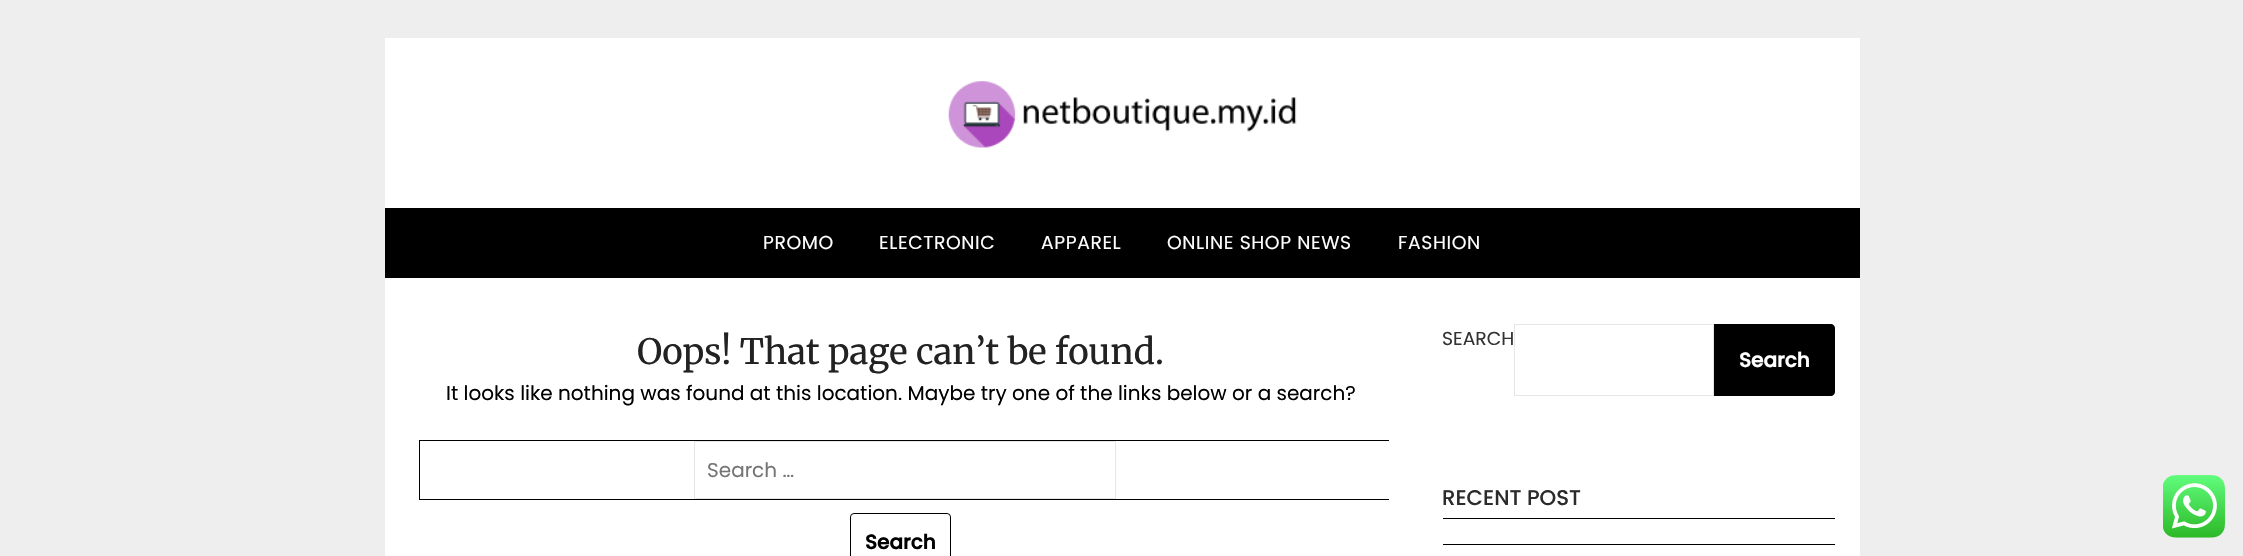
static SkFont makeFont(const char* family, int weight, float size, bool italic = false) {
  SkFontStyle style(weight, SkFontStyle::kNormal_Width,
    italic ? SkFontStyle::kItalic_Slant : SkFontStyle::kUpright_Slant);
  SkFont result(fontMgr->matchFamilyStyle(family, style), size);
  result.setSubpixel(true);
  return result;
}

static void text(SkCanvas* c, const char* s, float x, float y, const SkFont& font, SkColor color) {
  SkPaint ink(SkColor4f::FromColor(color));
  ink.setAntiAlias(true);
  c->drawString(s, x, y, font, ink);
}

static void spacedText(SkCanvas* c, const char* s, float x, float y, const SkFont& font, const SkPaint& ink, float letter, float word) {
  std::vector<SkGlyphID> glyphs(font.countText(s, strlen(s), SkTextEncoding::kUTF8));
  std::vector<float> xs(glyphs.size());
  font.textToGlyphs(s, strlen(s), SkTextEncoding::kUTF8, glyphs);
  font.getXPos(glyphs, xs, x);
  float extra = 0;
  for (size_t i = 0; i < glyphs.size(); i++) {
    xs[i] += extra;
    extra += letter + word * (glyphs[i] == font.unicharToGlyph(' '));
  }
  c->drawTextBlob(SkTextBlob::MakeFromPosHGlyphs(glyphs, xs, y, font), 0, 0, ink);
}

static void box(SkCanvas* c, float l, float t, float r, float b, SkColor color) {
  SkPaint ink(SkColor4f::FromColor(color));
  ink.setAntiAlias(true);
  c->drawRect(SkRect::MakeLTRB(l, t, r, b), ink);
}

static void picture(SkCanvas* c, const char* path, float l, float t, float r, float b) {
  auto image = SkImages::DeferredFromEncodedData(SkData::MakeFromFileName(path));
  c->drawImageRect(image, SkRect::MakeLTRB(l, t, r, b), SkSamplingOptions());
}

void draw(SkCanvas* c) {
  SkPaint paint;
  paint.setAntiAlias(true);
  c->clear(0xffeeeeee);
  box(c, 385, 38, 1860, 208, 0xffffffff);
  picture(c, "img_01.png", 948, 81, 1297, 148);
  box(c, 385, 208, 1860, 278, 0xff000000);
  SkFont face1 = makeFont("Poppins", 400, 18.75f);
  paint.setColor(0xffffffff);
  spacedText(c, "PROMO", 763, 249, face1, paint, 0.6f, 0);
  spacedText(c, "ELECTRONIC", 879, 249, face1, paint, 0.6f, 0);
  spacedText(c, "APPAREL", 1041, 249, face1, paint, 0.6f, 0);
  spacedText(c, "ONLINE SHOP NEWS", 1167, 249, face1, paint, 0.6f, 0);
  spacedText(c, "FASHION", 1398, 249, face1, paint, 0.6f, 0);
  box(c, 385, 278, 1860, 556, 0xffffffff);
  SkFont face2 = makeFont("Merriweather", 300, 35);
  text(c, "Oops! That page can’t be found.", 637, 364, face2, 0xff222222);
  SkFont face3 = makeFont("Poppins", 400, 20);
  text(c, "It looks like nothing was found at this location. Maybe try one of the links below or a search?", 446, 400, face3, 0xff000000);
  box(c, 419, 440, 1389, 441, 0xff000000);
  box(c, 419, 499, 1389, 500, 0xff000000);
  box(c, 419, 440, 420, 500, 0xff000000);
  paint.setStyle(SkPaint::kStroke_Style);
  paint.setStrokeWidth(1);
  paint.setColor(0xffe5e6e9);
  c->drawRect(SkRect::MakeLTRB(694.5f, 441.5f, 1115.5f, 498.5f), paint);
  text(c, "Search …", 707, 477, face3, 0xff757575);
  paint.setColor(0xff000000);
  c->drawRoundRect(SkRect::MakeLTRB(850.5f, 513.5f, 950.5f, 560.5f), 3.5f, 3.5f, paint);
  SkFont face4 = makeFont("Poppins", 700, 20);
  text(c, "Search", 865, 549, face4, 0xff000000);
  text(c, "SEARCH", 1442, 345, face1, 0xff333333);
  paint.setColor(0xffe5e6e9);
  c->drawRect(SkRect::MakeLTRB(1514.5f, 324.5f, 1713.5f, 395.5f), paint);
  paint.setStyle(SkPaint::kFill_Style);
  paint.setColor(0xff000000);
  c->drawPath(SkPathBuilder().moveTo(1714, 324).lineTo(1831, 324).cubicTo(1833, 324, 1835, 326, 1835, 328).lineTo(1835, 392).cubicTo(1835, 394, 1833, 396, 1831, 396).lineTo(1714, 396).close().detach(), paint);
  text(c, "Search", 1739, 367, face4, 0xffffffff);
  box(c, 1443, 544, 1835, 545, 0xff000000);
  box(c, 1443, 518, 1835, 519, 0xff000000);
  SkFont face5 = makeFont("Poppins", 500, 21.25f);
  text(c, "RECENT POST", 1442, 505, face5, 0xff2b2b2b);
  picture(c, "img_02.png", 2163, 475, 2225, 538);
}
